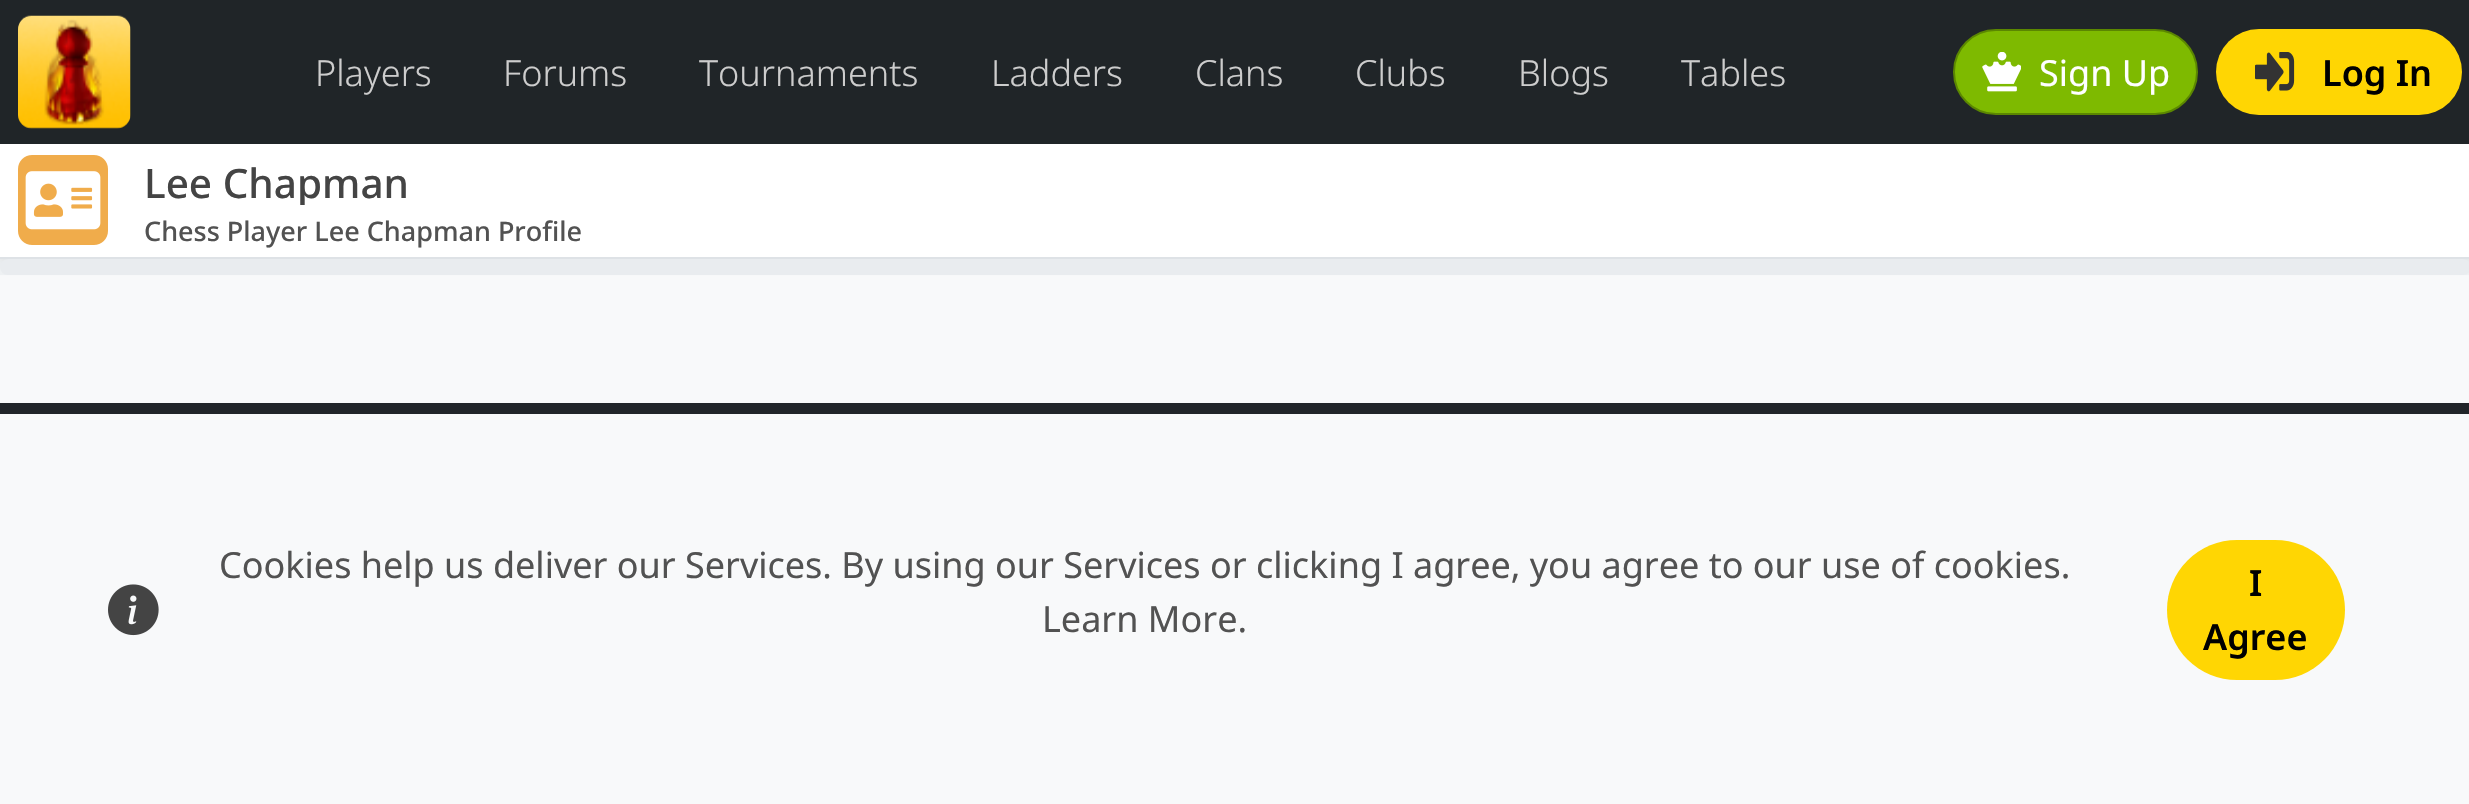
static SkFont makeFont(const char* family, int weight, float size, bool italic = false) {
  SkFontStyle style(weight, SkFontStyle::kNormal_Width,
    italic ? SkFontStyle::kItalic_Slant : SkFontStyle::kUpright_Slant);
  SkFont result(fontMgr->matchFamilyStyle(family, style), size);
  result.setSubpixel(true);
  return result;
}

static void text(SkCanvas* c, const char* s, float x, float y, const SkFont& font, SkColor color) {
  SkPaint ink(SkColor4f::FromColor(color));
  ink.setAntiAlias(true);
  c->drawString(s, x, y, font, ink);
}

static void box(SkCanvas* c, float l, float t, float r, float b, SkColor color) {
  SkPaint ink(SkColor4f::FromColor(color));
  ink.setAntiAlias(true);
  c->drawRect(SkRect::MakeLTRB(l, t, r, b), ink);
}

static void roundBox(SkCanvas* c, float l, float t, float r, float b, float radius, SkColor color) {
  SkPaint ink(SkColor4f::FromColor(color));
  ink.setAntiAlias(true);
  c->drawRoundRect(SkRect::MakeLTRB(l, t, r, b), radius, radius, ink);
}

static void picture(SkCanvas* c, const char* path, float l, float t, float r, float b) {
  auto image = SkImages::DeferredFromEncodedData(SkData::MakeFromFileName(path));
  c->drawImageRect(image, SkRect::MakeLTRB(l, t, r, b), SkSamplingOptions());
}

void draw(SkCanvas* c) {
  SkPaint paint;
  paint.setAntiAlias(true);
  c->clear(0xffeff2f4);
  box(c, 0, 0, 2469, 144, 0xff202528);
  picture(c, "img_01.png", 18, 15, 131, 129);
  SkFont face1 = makeFont("Noto Sans", 300, 36);
  text(c, "Players", 315, 86, face1, 0xffcdcdcd);
  text(c, "Forums", 503, 86, face1, 0xffcdcdcd);
  text(c, "Tournaments", 699, 86, face1, 0xffcdcdcd);
  text(c, "Ladders", 991, 86, face1, 0xffcdcdcd);
  text(c, "Clans", 1195, 86, face1, 0xffcdcdcd);
  text(c, "Clubs", 1355, 86, face1, 0xffcdcdcd);
  text(c, "Blogs", 1518, 86, face1, 0xffcdcdcd);
  text(c, "Tables", 1681, 86, face1, 0xffcdcdcd);
  paint.setColor(0xff7eba00);
  c->drawRoundRect(SkRect::MakeLTRB(1954, 30, 2197, 114), 42, 42, paint);
  paint.setStyle(SkPaint::kStroke_Style);
  paint.setStrokeWidth(2);
  paint.setColor(0xff5b8700);
  c->drawRoundRect(SkRect::MakeLTRB(1954, 30, 2197, 114), 42, 42, paint);
  picture(c, "img_02.png", 1982, 52, 2021, 92);
  SkFont face2 = makeFont("Noto Sans", 400, 36);
  text(c, "Sign Up", 2039, 86, face2, 0xffffffff);
  roundBox(c, 2216, 29, 2462, 115, 43, 0xffffd603);
  picture(c, "img_03.png", 2255, 52, 2295, 92);
  SkFont face3 = makeFont("Noto Sans", 600, 36);
  text(c, "Log In", 2322, 86, face3, 0xff000000);
  box(c, 0, 275, 2469, 403, 0xfff8f9fa);
  paint.setStyle(SkPaint::kFill_Style);
  paint.setColor(0x12000000);
  paint.setMaskFilter(SkMaskFilter::MakeBlur(kNormal_SkBlurStyle, 4.5f));
  c->drawRect(SkRect::MakeLTRB(0, 149, 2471, 263), paint);
  paint.setMaskFilter(nullptr);
  box(c, 0, 144, 2469, 257, 0xffffffff);
  box(c, 0, 257, 2469, 259, 0xffdee2e6);
  picture(c, "img_04.png", 18, 155, 108, 245);
  c->save();
  c->clipRect(SkRect::MakeLTRB(144, 151, 2453, 205));
  SkFont face4 = makeFont("Noto Sans", 500, 40.5f);
  text(c, "Lee Chapman", 144, 198, face4, 0xff444444);
  c->restore();
  SkFont face5 = makeFont("Noto Sans", 500, 27);
  text(c, "Chess Player Lee Chapman Profile", 144, 241, face5, 0xff525252);
  roundBox(c, 0, 259, 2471, 275, 8, 0xffe9ecef);
  box(c, 0, 414, 2469, 804, 0xfff8f9fa);
  box(c, 0, 403, 2469, 414, 0xff212529);
  picture(c, "img_05.png", 108, 584, 159, 636);
  text(c, "Cookies help us deliver our Services. By using our Services or clicking I agree, you agree to our use of cookies.", 219, 578, face2, 0xff525252);
  text(c, "Learn More.", 1042, 632, face2, 0xff525252);
  roundBox(c, 2167, 540, 2345, 680, 70, 0xffffd603);
  text(c, "I", 2249, 596, face3, 0xff000000);
  text(c, "Agree", 2203, 650, face3, 0xff000000);
}
